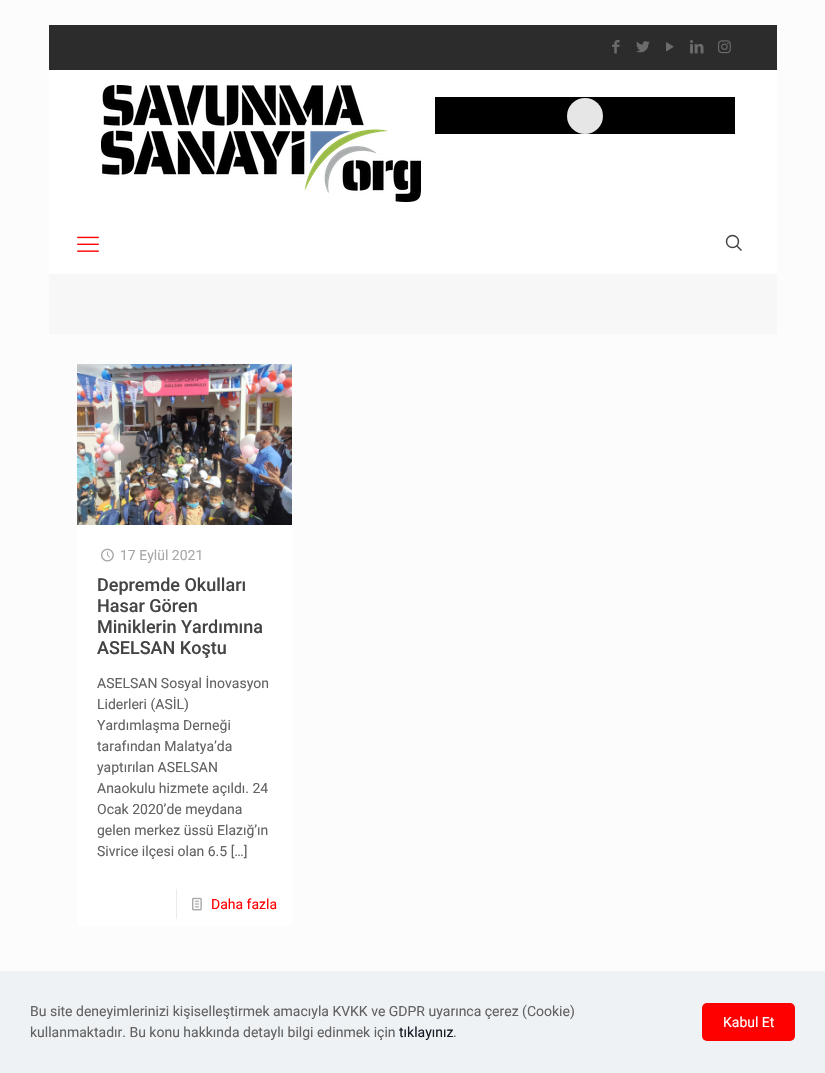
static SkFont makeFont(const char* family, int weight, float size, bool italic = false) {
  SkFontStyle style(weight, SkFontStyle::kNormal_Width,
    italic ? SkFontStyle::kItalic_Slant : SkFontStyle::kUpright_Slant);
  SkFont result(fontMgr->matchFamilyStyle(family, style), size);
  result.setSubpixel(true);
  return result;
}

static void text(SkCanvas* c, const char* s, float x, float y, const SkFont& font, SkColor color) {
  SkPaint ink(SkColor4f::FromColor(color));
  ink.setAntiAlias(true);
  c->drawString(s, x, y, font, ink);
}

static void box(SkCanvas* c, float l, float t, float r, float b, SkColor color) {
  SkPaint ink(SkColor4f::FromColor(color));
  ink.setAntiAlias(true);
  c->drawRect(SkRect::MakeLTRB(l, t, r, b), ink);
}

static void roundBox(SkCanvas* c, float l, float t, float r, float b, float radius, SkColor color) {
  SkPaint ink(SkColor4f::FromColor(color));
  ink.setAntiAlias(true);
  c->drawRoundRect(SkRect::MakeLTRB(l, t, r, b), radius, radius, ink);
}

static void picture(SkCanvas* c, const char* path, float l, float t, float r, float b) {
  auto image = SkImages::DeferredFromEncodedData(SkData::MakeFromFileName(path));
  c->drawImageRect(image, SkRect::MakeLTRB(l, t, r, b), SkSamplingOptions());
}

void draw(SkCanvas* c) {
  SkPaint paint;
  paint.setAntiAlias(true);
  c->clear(0xfffcfcfc);
  box(c, 49, 25, 777, 70, 0xff2c2c2c);
  picture(c, "img_01.png", 612, 40, 620, 54);
  picture(c, "img_02.png", 636, 41, 650, 53);
  picture(c, "img_03.png", 666, 42, 674, 52);
  picture(c, "img_04.png", 690, 40, 704, 54);
  picture(c, "img_05.png", 718, 40, 731, 54);
  box(c, 49, 70, 777, 274, 0xffffffff);
  picture(c, "img_06.png", 101, 85, 421, 202);
  box(c, 435, 97, 735, 134, 0xff000000);
  paint.setColor(0xffe6e6e6);
  c->drawCircle(585, 116, 18, paint);
  picture(c, "img_07.png", 77, 236, 99, 252);
  paint.setStyle(SkPaint::kStroke_Style);
  paint.setStrokeWidth(1.5f);
  paint.setColor(0xff444444);
  c->drawCircle(732.5f, 241.5f, 6, paint);
  c->drawPath(SkPathBuilder().moveTo(736.5f, 245.5f).lineTo(741.5f, 250.5f).detach(), paint);
  box(c, 49, 274, 777, 334, 0xfff7f7f7);
  box(c, 77, 525, 292, 926, 0xffffffff);
  picture(c, "img_08.png", 77, 364, 292, 525);
  picture(c, "img_09.png", 101, 548, 114, 562);
  SkFont face1 = makeFont("Roboto", 400, 14);
  text(c, "17 Eylül 2021", 120, 560, face1, 0xffa8a8a8);
  SkFont face2 = makeFont("Roboto", 500, 18);
  text(c, "Depremde Okulları", 97, 591, face2, 0xff444444);
  text(c, "Hasar Gören", 97, 612, face2, 0xff444444);
  text(c, "Miniklerin Yardımına", 97, 633, face2, 0xff444444);
  text(c, "ASELSAN Koştu", 97, 654, face2, 0xff444444);
  text(c, "ASELSAN Sosyal İnovasyon", 97, 688, face1, 0xff626262);
  text(c, "Liderleri (ASİL)", 97, 709, face1, 0xff626262);
  text(c, "Yardımlaşma Derneği", 97, 730, face1, 0xff626262);
  text(c, "tarafından Malatya’da", 97, 751, face1, 0xff626262);
  text(c, "yaptırılan ASELSAN", 97, 772, face1, 0xff626262);
  text(c, "Anaokulu hizmete açıldı. 24", 97, 793, face1, 0xff626262);
  text(c, "Ocak 2020’de meydana", 97, 814, face1, 0xff626262);
  text(c, "gelen merkez üssü Elazığ’ın", 97, 835, face1, 0xff626262);
  text(c, "Sivrice ilçesi olan 6.5 […]", 97, 856, face1, 0xff626262);
  box(c, 176, 889, 177, 919, 0xffebebeb);
  picture(c, "img_10.png", 192, 897, 202, 911);
  text(c, "Daha fazla", 211, 909, face1, 0xffff0000);
  box(c, 0, 971, 825, 1073, 0xffeef2f5);
  text(c, "Bu site deneyimlerinizi kişiselleştirmek amacıyla KVKK ve GDPR uyarınca çerez (Cookie)", 30, 1016, face1, 0xff626262);
  text(c, "kullanmaktadır. Bu konu hakkında detaylı bilgi edinmek için", 30, 1037, face1, 0xff626262);
  text(c, "tıklayınız", 399, 1037, face1, 0xff161922);
  text(c, ".", 453, 1037, face1, 0xff626262);
  roundBox(c, 702, 1003, 795, 1041, 5, 0xffff0000);
  paint.setStrokeWidth(1);
  paint.setColor(0xfff70000);
  c->drawRoundRect(SkRect::MakeLTRB(703.5f, 1004.5f, 793.5f, 1039.5f), 3.5f, 3.5f, paint);
  text(c, "Kabul Et", 723, 1027, face1, 0xffffffff);
}
